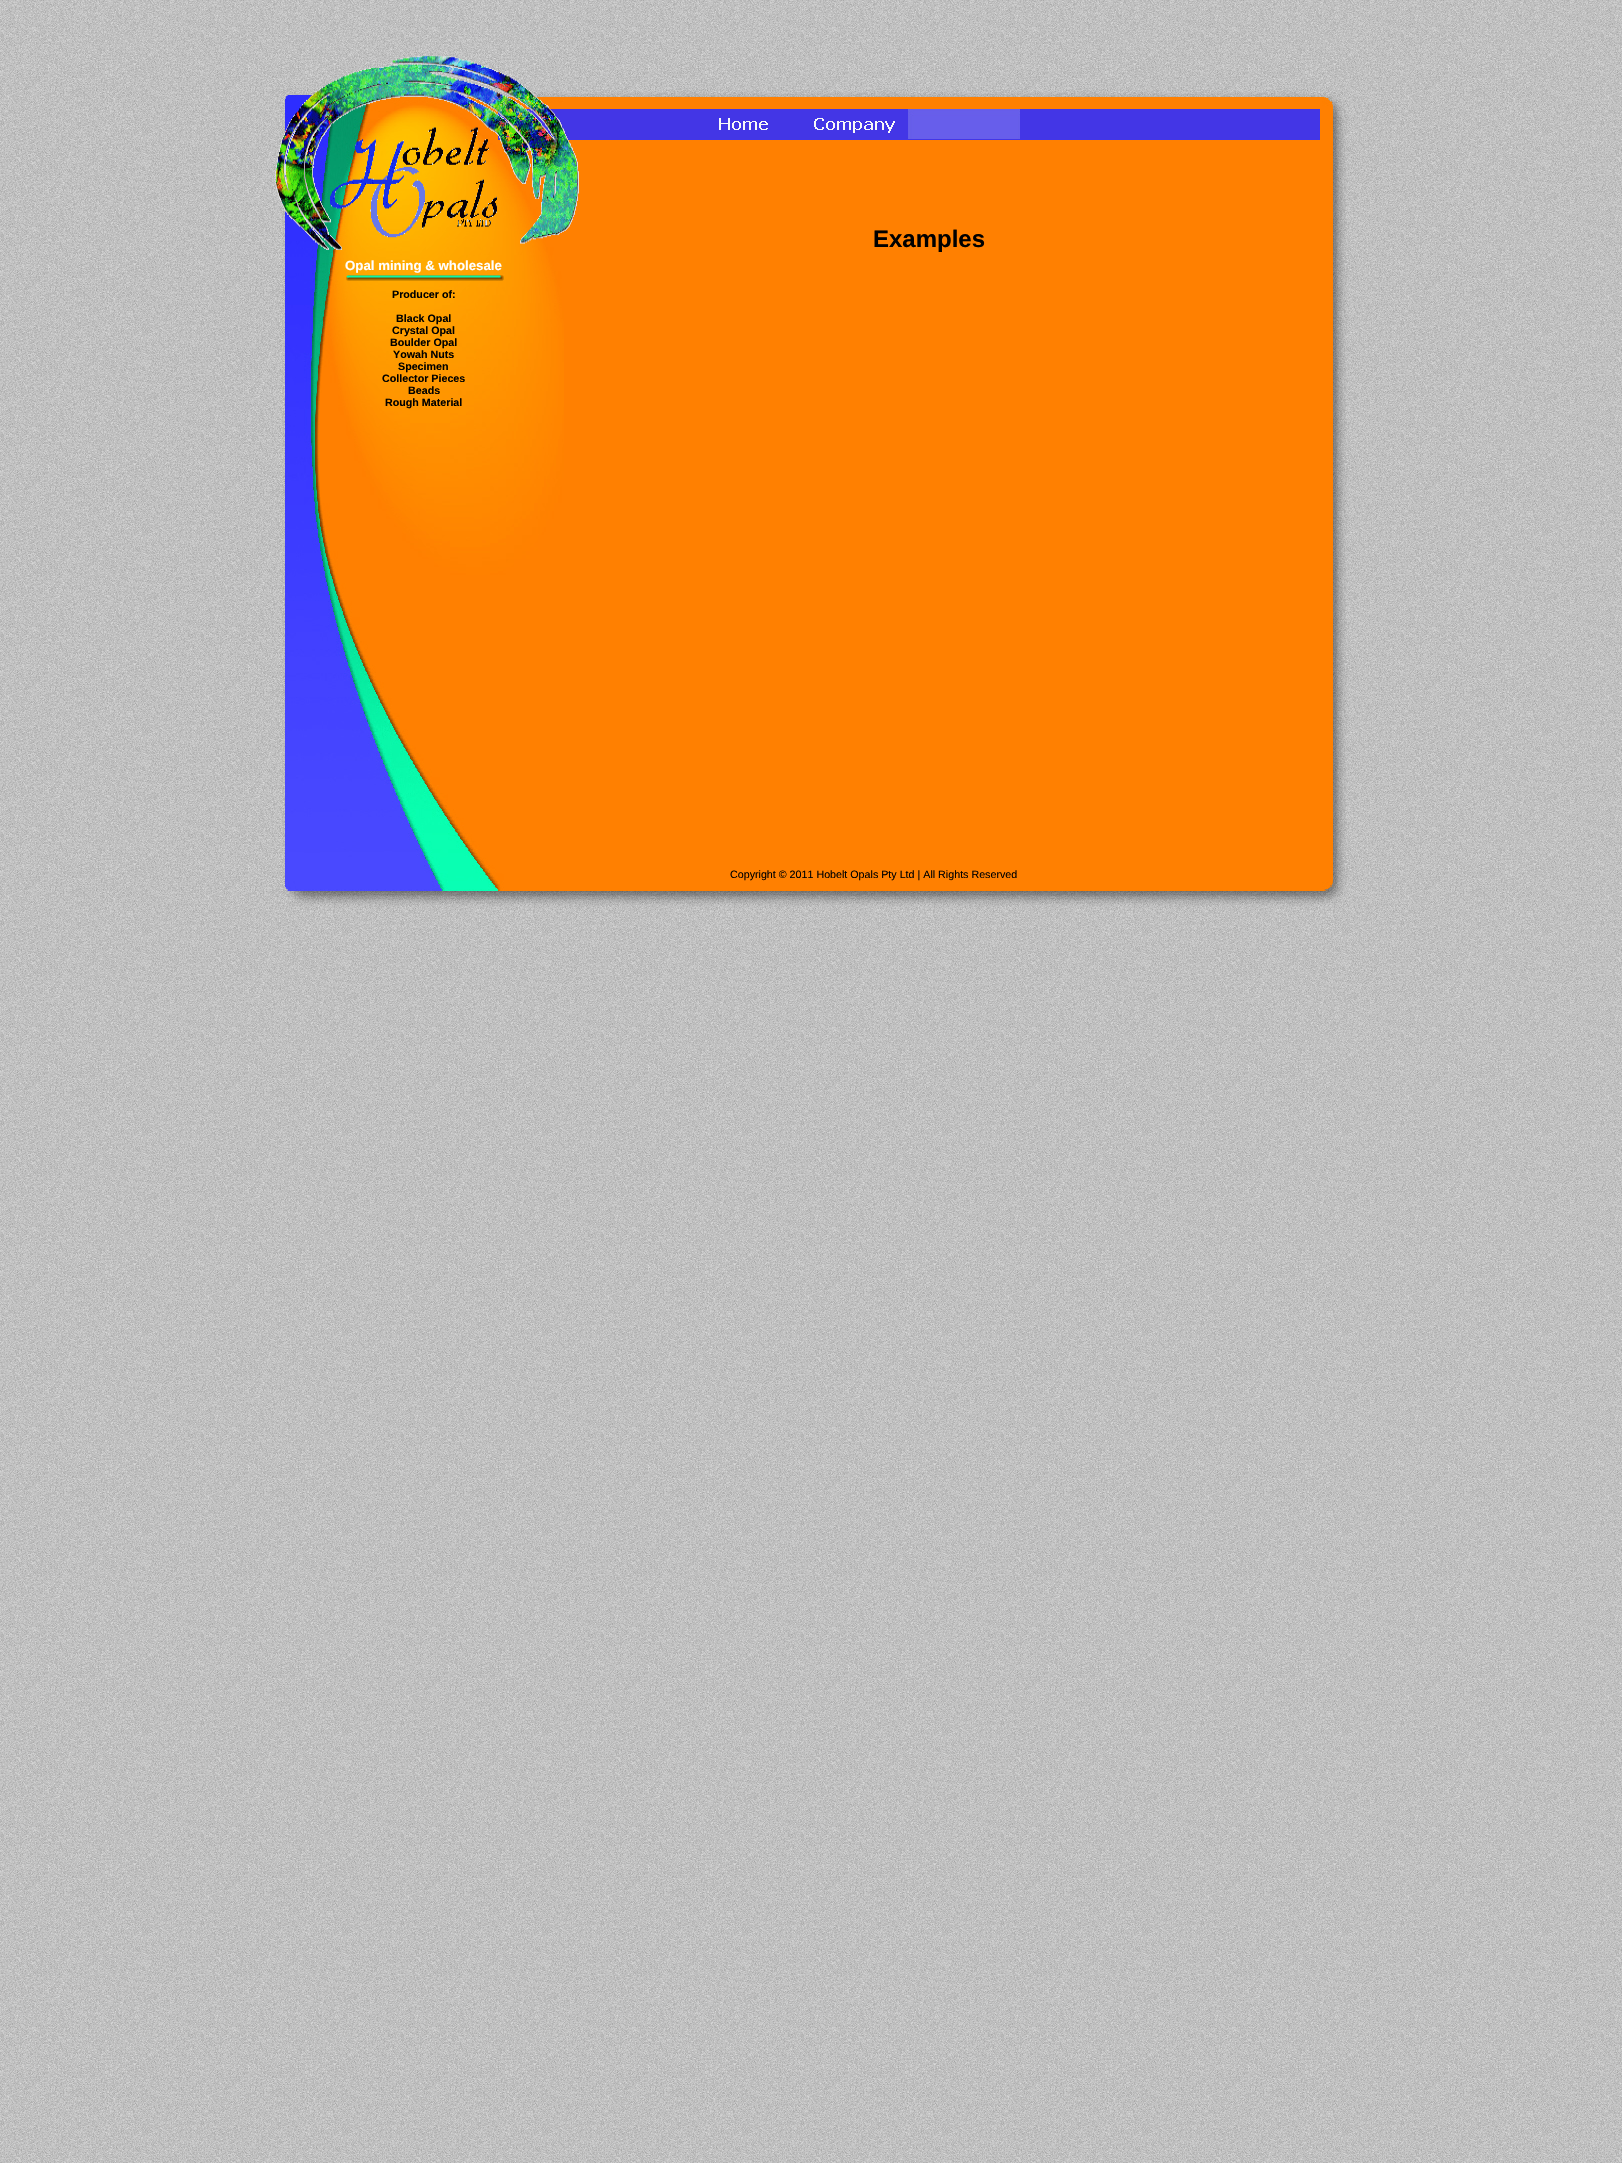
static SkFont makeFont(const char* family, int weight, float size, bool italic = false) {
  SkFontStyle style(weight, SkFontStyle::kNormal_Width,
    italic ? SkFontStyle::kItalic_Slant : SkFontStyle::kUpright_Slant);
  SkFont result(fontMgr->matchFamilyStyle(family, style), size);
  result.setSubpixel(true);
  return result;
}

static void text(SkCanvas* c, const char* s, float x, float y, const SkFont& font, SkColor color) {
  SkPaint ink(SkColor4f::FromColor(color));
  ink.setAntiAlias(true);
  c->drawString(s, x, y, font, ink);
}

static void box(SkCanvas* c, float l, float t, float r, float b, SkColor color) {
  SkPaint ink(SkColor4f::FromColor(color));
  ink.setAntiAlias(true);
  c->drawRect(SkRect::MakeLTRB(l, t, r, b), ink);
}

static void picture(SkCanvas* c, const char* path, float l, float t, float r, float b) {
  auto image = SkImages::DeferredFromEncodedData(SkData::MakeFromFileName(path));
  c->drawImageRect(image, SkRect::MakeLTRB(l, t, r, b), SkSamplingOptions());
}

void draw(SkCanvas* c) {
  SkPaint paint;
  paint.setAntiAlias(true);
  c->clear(0xffffffff);
  picture(c, "img_01.png", 0, 0, 1622, 2163);
  picture(c, "img_04.png", 282, 90, 1352, 910);
  picture(c, "img_03.png", 280, 81, 505, 906);
  picture(c, "img_05.png", 322, 95, 564, 589);
  box(c, 498, 109, 1320, 140, 0xff4336e6);
  picture(c, "img_02.png", 275, 56, 579, 250);
  picture(c, "img_06.png", 719, 118, 768, 130);
  picture(c, "img_07.png", 814, 118, 895, 133);
  picture(c, "img_08.png", 908, 109, 1020, 139);
  SkFont face1 = makeFont("Liberation Sans", 700, 24);
  text(c, "Examples", 873, 247, face1, 0xff000000);
  SkFont face2 = makeFont("Liberation Sans", 700, 13.25f);
  text(c, "Opal mining & wholesale", 345, 270, face2, 0xffffffff);
  SkFont face3 = makeFont("Liberation Sans", 700, 10.7f);
  text(c, "Producer of:", 392, 298, face3, 0xff000000);
  text(c, "Black Opal", 396, 322, face3, 0xff000000);
  text(c, "Crystal Opal", 392, 334, face3, 0xff000000);
  text(c, "Boulder Opal", 390, 346, face3, 0xff000000);
  text(c, "Yowah Nuts", 393, 358, face3, 0xff000000);
  text(c, "Specimen", 398, 370, face3, 0xff000000);
  text(c, "Collector Pieces", 382, 382, face3, 0xff000000);
  text(c, "Beads", 408, 394, face3, 0xff000000);
  text(c, "Rough Material", 385, 406, face3, 0xff000000);
  picture(c, "img_09.png", 346, 274, 505, 281);
  SkFont face4 = makeFont("Liberation Sans", 400, 10.7f);
  text(c, "Copyright © 2011 Hobelt Opals Pty Ltd | All Rights Reserved", 730, 878, face4, 0xff000000);
}
